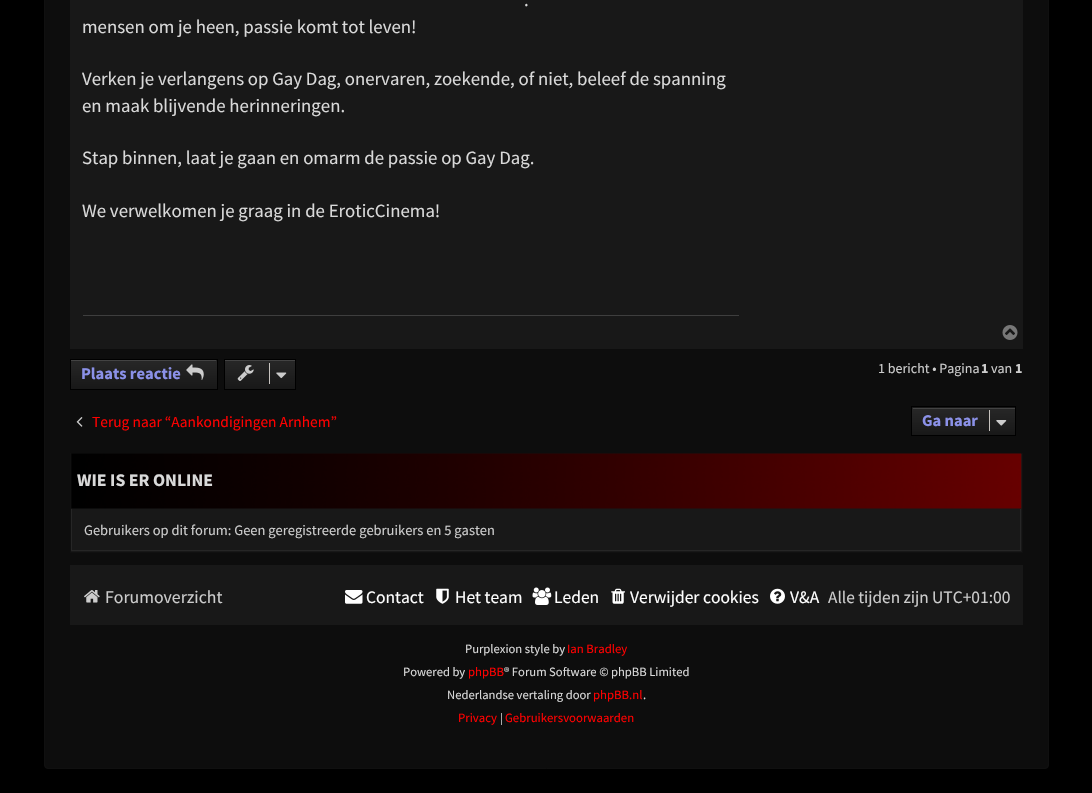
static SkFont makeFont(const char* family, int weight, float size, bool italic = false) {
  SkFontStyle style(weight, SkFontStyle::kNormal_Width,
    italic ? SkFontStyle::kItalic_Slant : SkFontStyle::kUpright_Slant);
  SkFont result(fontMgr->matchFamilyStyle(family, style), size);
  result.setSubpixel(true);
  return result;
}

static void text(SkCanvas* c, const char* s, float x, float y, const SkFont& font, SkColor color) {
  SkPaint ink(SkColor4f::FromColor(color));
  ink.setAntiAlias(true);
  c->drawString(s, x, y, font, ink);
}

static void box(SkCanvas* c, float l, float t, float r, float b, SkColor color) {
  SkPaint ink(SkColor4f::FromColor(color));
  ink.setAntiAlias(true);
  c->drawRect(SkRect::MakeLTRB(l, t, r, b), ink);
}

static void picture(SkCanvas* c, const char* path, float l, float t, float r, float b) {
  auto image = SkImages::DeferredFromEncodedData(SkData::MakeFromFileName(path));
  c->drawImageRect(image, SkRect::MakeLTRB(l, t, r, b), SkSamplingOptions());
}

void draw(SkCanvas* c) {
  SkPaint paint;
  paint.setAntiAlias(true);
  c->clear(0xff000000);
  paint.setColor(0x99151515);
  c->drawRoundRect(SkRect::MakeLTRB(44.5f, -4.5f, 1048.5f, 768.5f), 3.5f, 3.5f, paint);
  paint.setStyle(SkPaint::kStroke_Style);
  paint.setStrokeWidth(1);
  paint.setColor(0xff101010);
  c->drawRoundRect(SkRect::MakeLTRB(44.5f, -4.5f, 1048.5f, 768.5f), 3.5f, 3.5f, paint);
  box(c, 70, 0, 1023, 349, 0xff181818);
  SkFont face1 = makeFont("Source Sans Pro", 400, 18.8f);
  text(c, ".", 524, 6, face1, 0xffd9d9d9);
  text(c, "mensen om je heen, passie komt tot leven!", 82, 33, face1, 0xffd9d9d9);
  text(c, "Verken je verlangens op Gay Dag, onervaren, zoekende, of niet, beleef de spanning", 82, 85, face1, 0xffd9d9d9);
  text(c, "en maak blijvende herinneringen.", 82, 112, face1, 0xffd9d9d9);
  text(c, "Stap binnen, laat je gaan en omarm de passie op Gay Dag.", 82, 164, face1, 0xffd9d9d9);
  text(c, "We verwelkomen je graag in de EroticCinema!", 82, 217, face1, 0xffd9d9d9);
  box(c, 83, 315, 739, 316, 0xff3e3e3e);
  picture(c, "img_01.png", 1002, 325, 1018, 340);
  paint.setStyle(SkPaint::kFill_Style);
  {
    const SkColor colors[] = {0xff272727, 0xff181818};
    const float stops[] = {0, 1};
    const SkPoint ends[] = {{144, 360}, {144, 389}};
    paint.setShader(SkGradientShader::MakeLinear(ends, colors, stops, 2, SkTileMode::kClamp));
    paint.setAlpha(255);
  }
  c->drawRect(SkRect::MakeLTRB(71, 360, 217, 389), paint);
  box(c, 71, 360, 216, 361, 0xff434343);
  paint.setStyle(SkPaint::kStroke_Style);
  paint.setShader(nullptr);
  paint.setColor(0xff000000);
  c->drawRect(SkRect::MakeLTRB(70.5f, 359.5f, 217.5f, 389.5f), paint);
  SkFont face2 = makeFont("Source Sans Pro", 700, 16.5f);
  text(c, "Plaats reactie", 81, 379, face2, 0xff8b91e8);
  picture(c, "img_02.png", 186, 364, 204, 380);
  paint.setStyle(SkPaint::kFill_Style);
  {
    const SkColor colors[] = {0xff272727, 0xff181818};
    const float stops[] = {0, 1};
    const SkPoint ends[] = {{260, 360}, {260, 389}};
    paint.setShader(SkGradientShader::MakeLinear(ends, colors, stops, 2, SkTileMode::kClamp));
    paint.setAlpha(255);
  }
  c->drawRect(SkRect::MakeLTRB(225, 361, 295, 389), paint);
  box(c, 225, 360, 295, 361, 0xff434343);
  paint.setStyle(SkPaint::kStroke_Style);
  paint.setShader(nullptr);
  paint.setColor(0xff000000);
  c->drawRect(SkRect::MakeLTRB(224.5f, 359.5f, 295.5f, 389.5f), paint);
  picture(c, "img_03.png", 237, 365, 254, 381);
  box(c, 269, 363, 270, 384, 0xffc7c3bf);
  picture(c, "img_04.png", 276, 372, 287, 379);
  SkFont face3 = makeFont("Source Sans Pro", 400, 14);
  text(c, "1 bericht • Pagina", 878, 373, face3, 0xffcccccc);
  SkFont face4 = makeFont("Source Sans Pro", 700, 14);
  text(c, "1", 981, 373, face4, 0xffcccccc);
  text(c, "van", 991, 373, face3, 0xffcccccc);
  text(c, "1", 1015, 373, face4, 0xffcccccc);
  picture(c, "img_05.png", 76, 417, 83, 427);
  SkFont face5 = makeFont("Source Sans Pro", 400, 15.4f);
  text(c, "Terug naar “Aankondigingen Arnhem”", 92, 427, face5, 0xffff0000);
  paint.setStyle(SkPaint::kFill_Style);
  {
    const SkColor colors[] = {0xff272727, 0xff181818};
    const float stops[] = {0, 1};
    const SkPoint ends[] = {{964, 380}, {964, 408}};
    paint.setShader(SkGradientShader::MakeLinear(ends, colors, stops, 2, SkTileMode::kClamp));
    paint.setAlpha(255);
  }
  c->drawRect(SkRect::MakeLTRB(911, 407, 1016, 408), paint);
  {
    const SkColor colors[] = {0xff272727, 0xff181818};
    const float stops[] = {0, 1};
    const SkPoint ends[] = {{964, 408}, {964, 435}};
    paint.setShader(SkGradientShader::MakeLinear(ends, colors, stops, 2, SkTileMode::kClamp));
    paint.setAlpha(255);
  }
  c->drawRect(SkRect::MakeLTRB(912, 408, 1015, 435), paint);
  box(c, 913, 408, 1015, 409, 0xff434343);
  paint.setStyle(SkPaint::kStroke_Style);
  paint.setShader(nullptr);
  paint.setColor(0xff000000);
  c->drawRect(SkRect::MakeLTRB(911.5f, 406.5f, 1015.5f, 435.5f), paint);
  text(c, "Ga naar", 922, 426, face2, 0xff8b91e8);
  box(c, 989, 410, 990, 431, 0xffc7c3bf);
  picture(c, "img_06.png", 996, 420, 1007, 426);
  box(c, 71, 454, 1022, 552, 0xff181818);
  paint.setColor(0xff262626);
  c->drawRect(SkRect::MakeLTRB(71.5f, 454.5f, 1020.5f, 550.5f), paint);
  paint.setColor(0xff101010);
  c->drawRect(SkRect::MakeLTRB(70.5f, 453.5f, 1022.5f, 552.5f), paint);
  box(c, 71, 454, 1021, 509, 0xff181818);
  picture(c, "img_07.png", 71, 453, 1022, 509);
  SkFont face6 = makeFont("Source Sans Pro", 700, 17.75f);
  text(c, "WIE IS ER ONLINE", 77, 486, face6, 0xffd9d9d9);
  SkFont face7 = makeFont("Source Sans Pro", 400, 14.45f);
  text(c, "Gebruikers op dit forum: Geen geregistreerde gebruikers en 5 gasten", 84, 535, face7, 0xffcccccc);
  box(c, 70, 565, 1023, 625, 0xff181818);
  picture(c, "img_08.png", 84, 590, 100, 603);
  SkFont face8 = makeFont("Source Sans Pro", 400, 17.75f);
  text(c, "Forumoverzicht", 105, 603, face8, 0xffcccccc);
  picture(c, "img_09.png", 345, 590, 363, 604);
  SkFont face9 = makeFont("Source Sans Pro", 400, 17.5f);
  text(c, "Contact", 366, 603, face9, 0xffffffff);
  picture(c, "img_10.png", 436, 588, 449, 604);
  text(c, "Het team", 455, 603, face9, 0xffffffff);
  picture(c, "img_11.png", 532, 587, 552, 605);
  text(c, "Leden", 554, 603, face9, 0xffffffff);
  picture(c, "img_12.png", 611, 588, 625, 604);
  text(c, "Verwijder cookies", 630, 603, face9, 0xffffffff);
  picture(c, "img_13.png", 770, 588, 785, 604);
  text(c, "V&A", 790, 603, face9, 0xffffffff);
  SkFont face10 = makeFont("Source Sans Pro", 400, 17.25f);
  text(c, "Alle tijden zijn", 828, 603, face10, 0xffcccccc);
  text(c, "UTC+01:00", 932, 603, face9, 0xffcccccc);
  SkFont face11 = makeFont("Source Sans Pro", 400, 12.6f);
  text(c, "Purplexion style by", 465, 653, face11, 0xffd9d9d9);
  SkFont face12 = makeFont("Source Sans Pro", 400, 12.75f);
  text(c, "Ian Bradley", 567, 653, face12, 0xffff0000);
  text(c, "Powered by", 403, 676, face11, 0xffd9d9d9);
  text(c, "phpBB", 468, 676, face12, 0xffff0000);
  text(c, "® Forum Software © phpBB Limited", 504, 676, face11, 0xffd9d9d9);
  text(c, "Nederlandse vertaling door", 447, 699, face11, 0xffd9d9d9);
  text(c, "phpBB.nl", 593, 699, face12, 0xffff0000);
  text(c, ".", 643, 699, face11, 0xffd9d9d9);
  text(c, "Privacy", 458, 722, face12, 0xffff0000);
  SkFont face13 = makeFont("Source Sans Pro", 400, 12);
  text(c, "|", 500, 722, face13, 0xffd9d9d9);
  text(c, "Gebruikersvoorwaarden", 505, 722, face12, 0xffff0000);
}
